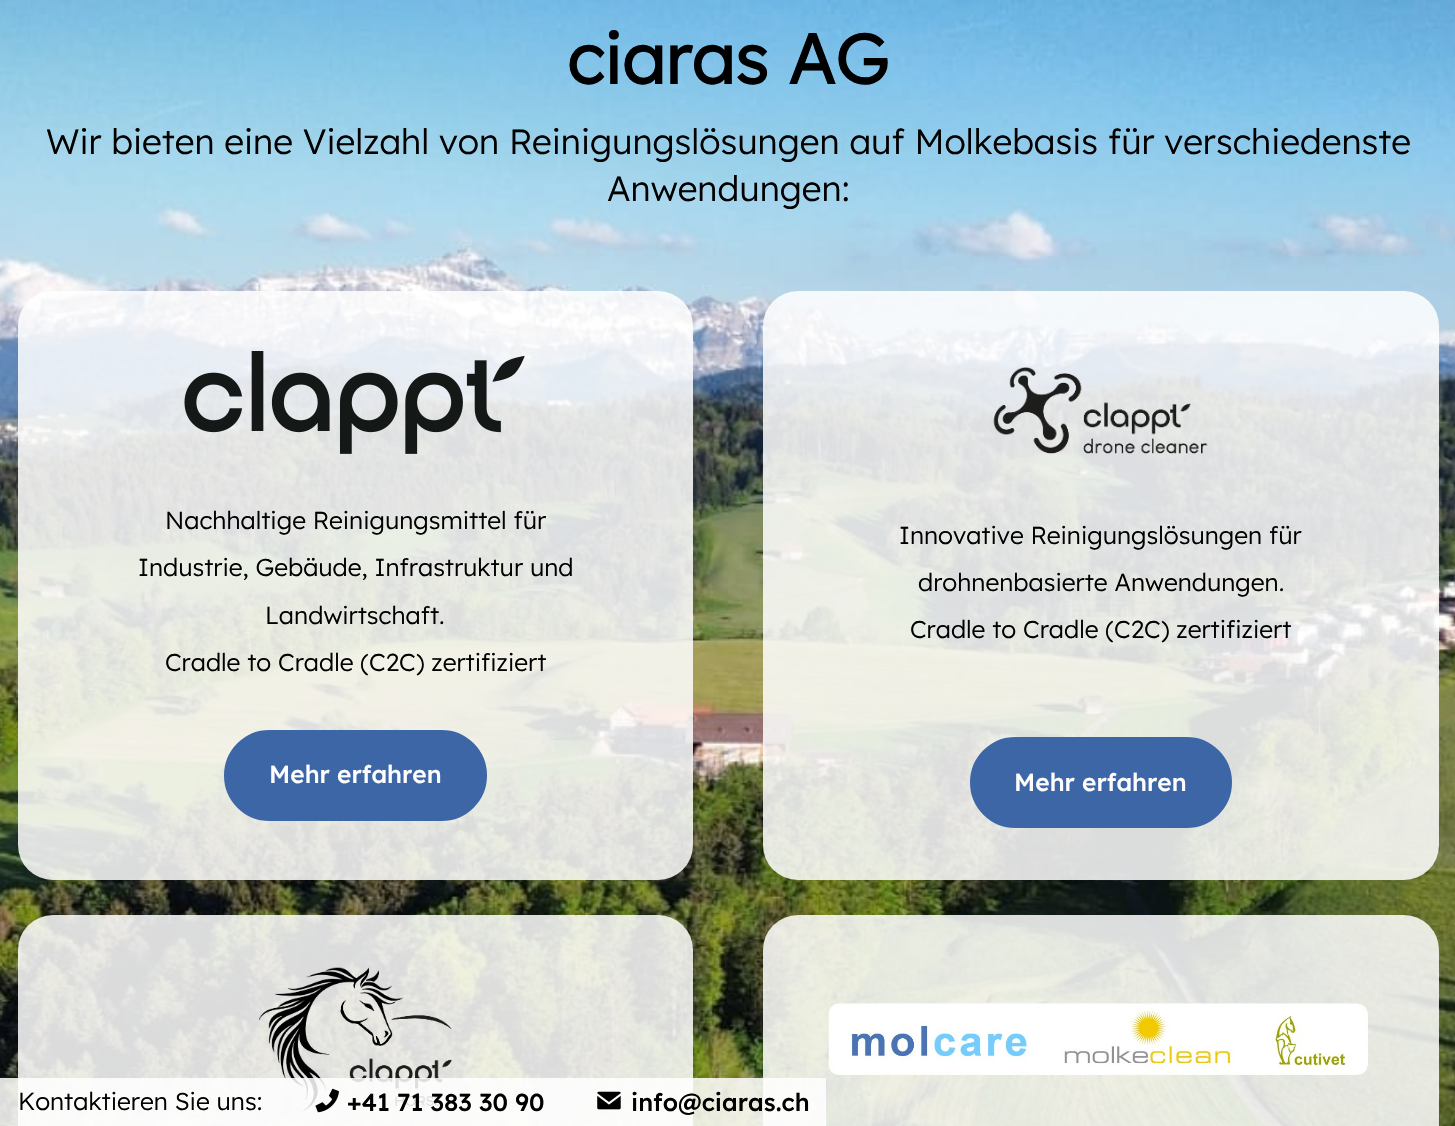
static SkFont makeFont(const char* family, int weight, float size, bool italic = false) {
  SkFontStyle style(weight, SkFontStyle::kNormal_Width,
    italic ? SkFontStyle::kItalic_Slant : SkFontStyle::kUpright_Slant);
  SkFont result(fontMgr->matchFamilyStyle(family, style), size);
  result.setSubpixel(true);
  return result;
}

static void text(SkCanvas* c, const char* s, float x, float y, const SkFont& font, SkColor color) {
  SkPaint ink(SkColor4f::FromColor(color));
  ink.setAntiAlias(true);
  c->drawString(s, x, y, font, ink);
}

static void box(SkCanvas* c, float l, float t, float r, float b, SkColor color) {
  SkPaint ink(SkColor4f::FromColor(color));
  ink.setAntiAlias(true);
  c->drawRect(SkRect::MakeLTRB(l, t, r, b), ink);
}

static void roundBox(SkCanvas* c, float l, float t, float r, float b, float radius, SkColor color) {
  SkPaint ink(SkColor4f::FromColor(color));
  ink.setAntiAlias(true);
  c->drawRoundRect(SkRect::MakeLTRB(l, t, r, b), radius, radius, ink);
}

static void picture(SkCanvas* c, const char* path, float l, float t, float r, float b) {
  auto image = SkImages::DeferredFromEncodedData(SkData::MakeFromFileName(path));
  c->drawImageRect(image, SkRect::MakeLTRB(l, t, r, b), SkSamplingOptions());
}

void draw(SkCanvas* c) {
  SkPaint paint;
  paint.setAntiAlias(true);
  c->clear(0xffffffff);
  picture(c, "img_01.png", 0, 0, 1455, 1126);
  SkFont face1 = makeFont("Lexend", 700, 70);
  text(c, "ciaras AG", 567, 84, face1, 0xff000000);
  SkFont face2 = makeFont("Lexend", 300, 35);
  text(c, "Wir bieten eine Vielzahl von Reinigungslösungen auf Molkebasis für verschiedenste", 46, 154, face2, 0xff000000);
  text(c, "Anwendungen:", 607, 201, face2, 0xff000000);
  roundBox(c, 18, 291, 693, 880, 35, 0xd9ffffff);
  picture(c, "img_02.png", 184, 351, 525, 454);
  SkFont face3 = makeFont("Lexend", 300, 24.5f);
  text(c, "Nachhaltige Reinigungsmittel für", 165, 529, face3, 0xff000000);
  text(c, "Industrie, Gebäude, Infrastruktur und", 138, 576, face3, 0xff000000);
  text(c, "Landwirtschaft.", 265, 624, face3, 0xff000000);
  text(c, "Cradle to Cradle (C2C) zertifiziert", 165, 671, face3, 0xff000000);
  paint.setColor(0xff3c66a6);
  c->drawRoundRect(SkRect::MakeLTRB(225, 731, 486, 820), 44.5f, 44.5f, paint);
  paint.setStyle(SkPaint::kStroke_Style);
  paint.setStrokeWidth(2);
  c->drawRoundRect(SkRect::MakeLTRB(225, 731, 486, 820), 44.5f, 44.5f, paint);
  SkFont face4 = makeFont("Lexend", 500, 24.5f);
  text(c, "Mehr erfahren", 269, 783, face4, 0xffffffff);
  roundBox(c, 763, 291, 1439, 880, 35, 0xd9ffffff);
  picture(c, "img_03.png", 993, 367, 1208, 454);
  text(c, "Innovative Reinigungslösungen für", 899, 544, face3, 0xff000000);
  text(c, "drohnenbasierte Anwendungen.", 918, 591, face3, 0xff000000);
  text(c, "Cradle to Cradle (C2C) zertifiziert", 910, 638, face3, 0xff000000);
  paint.setStyle(SkPaint::kFill_Style);
  c->drawRoundRect(SkRect::MakeLTRB(971, 738, 1231, 827), 44.5f, 44.5f, paint);
  paint.setStyle(SkPaint::kStroke_Style);
  c->drawRoundRect(SkRect::MakeLTRB(971, 738, 1231, 827), 44.5f, 44.5f, paint);
  text(c, "Mehr erfahren", 1014, 791, face4, 0xffffffff);
  roundBox(c, 18, 915, 693, 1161, 35, 0xd9ffffff);
  picture(c, "img_04.png", 259, 967, 452, 1112);
  roundBox(c, 763, 915, 1439, 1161, 35, 0xd9ffffff);
  picture(c, "img_05.png", 828, 1003, 1368, 1075);
  box(c, 0, 1078, 826, 1126, 0xd9ffffff);
  text(c, "Kontaktieren Sie uns:", 18, 1110, face3, 0xff000000);
  picture(c, "img_06.png", 315, 1088, 339, 1113);
  text(c, "+41 71 383 30 90", 347, 1111, face4, 0xff000000);
  picture(c, "img_07.png", 597, 1091, 621, 1110);
  text(c, "info@ciaras.ch", 631, 1111, face4, 0xff000000);
}
